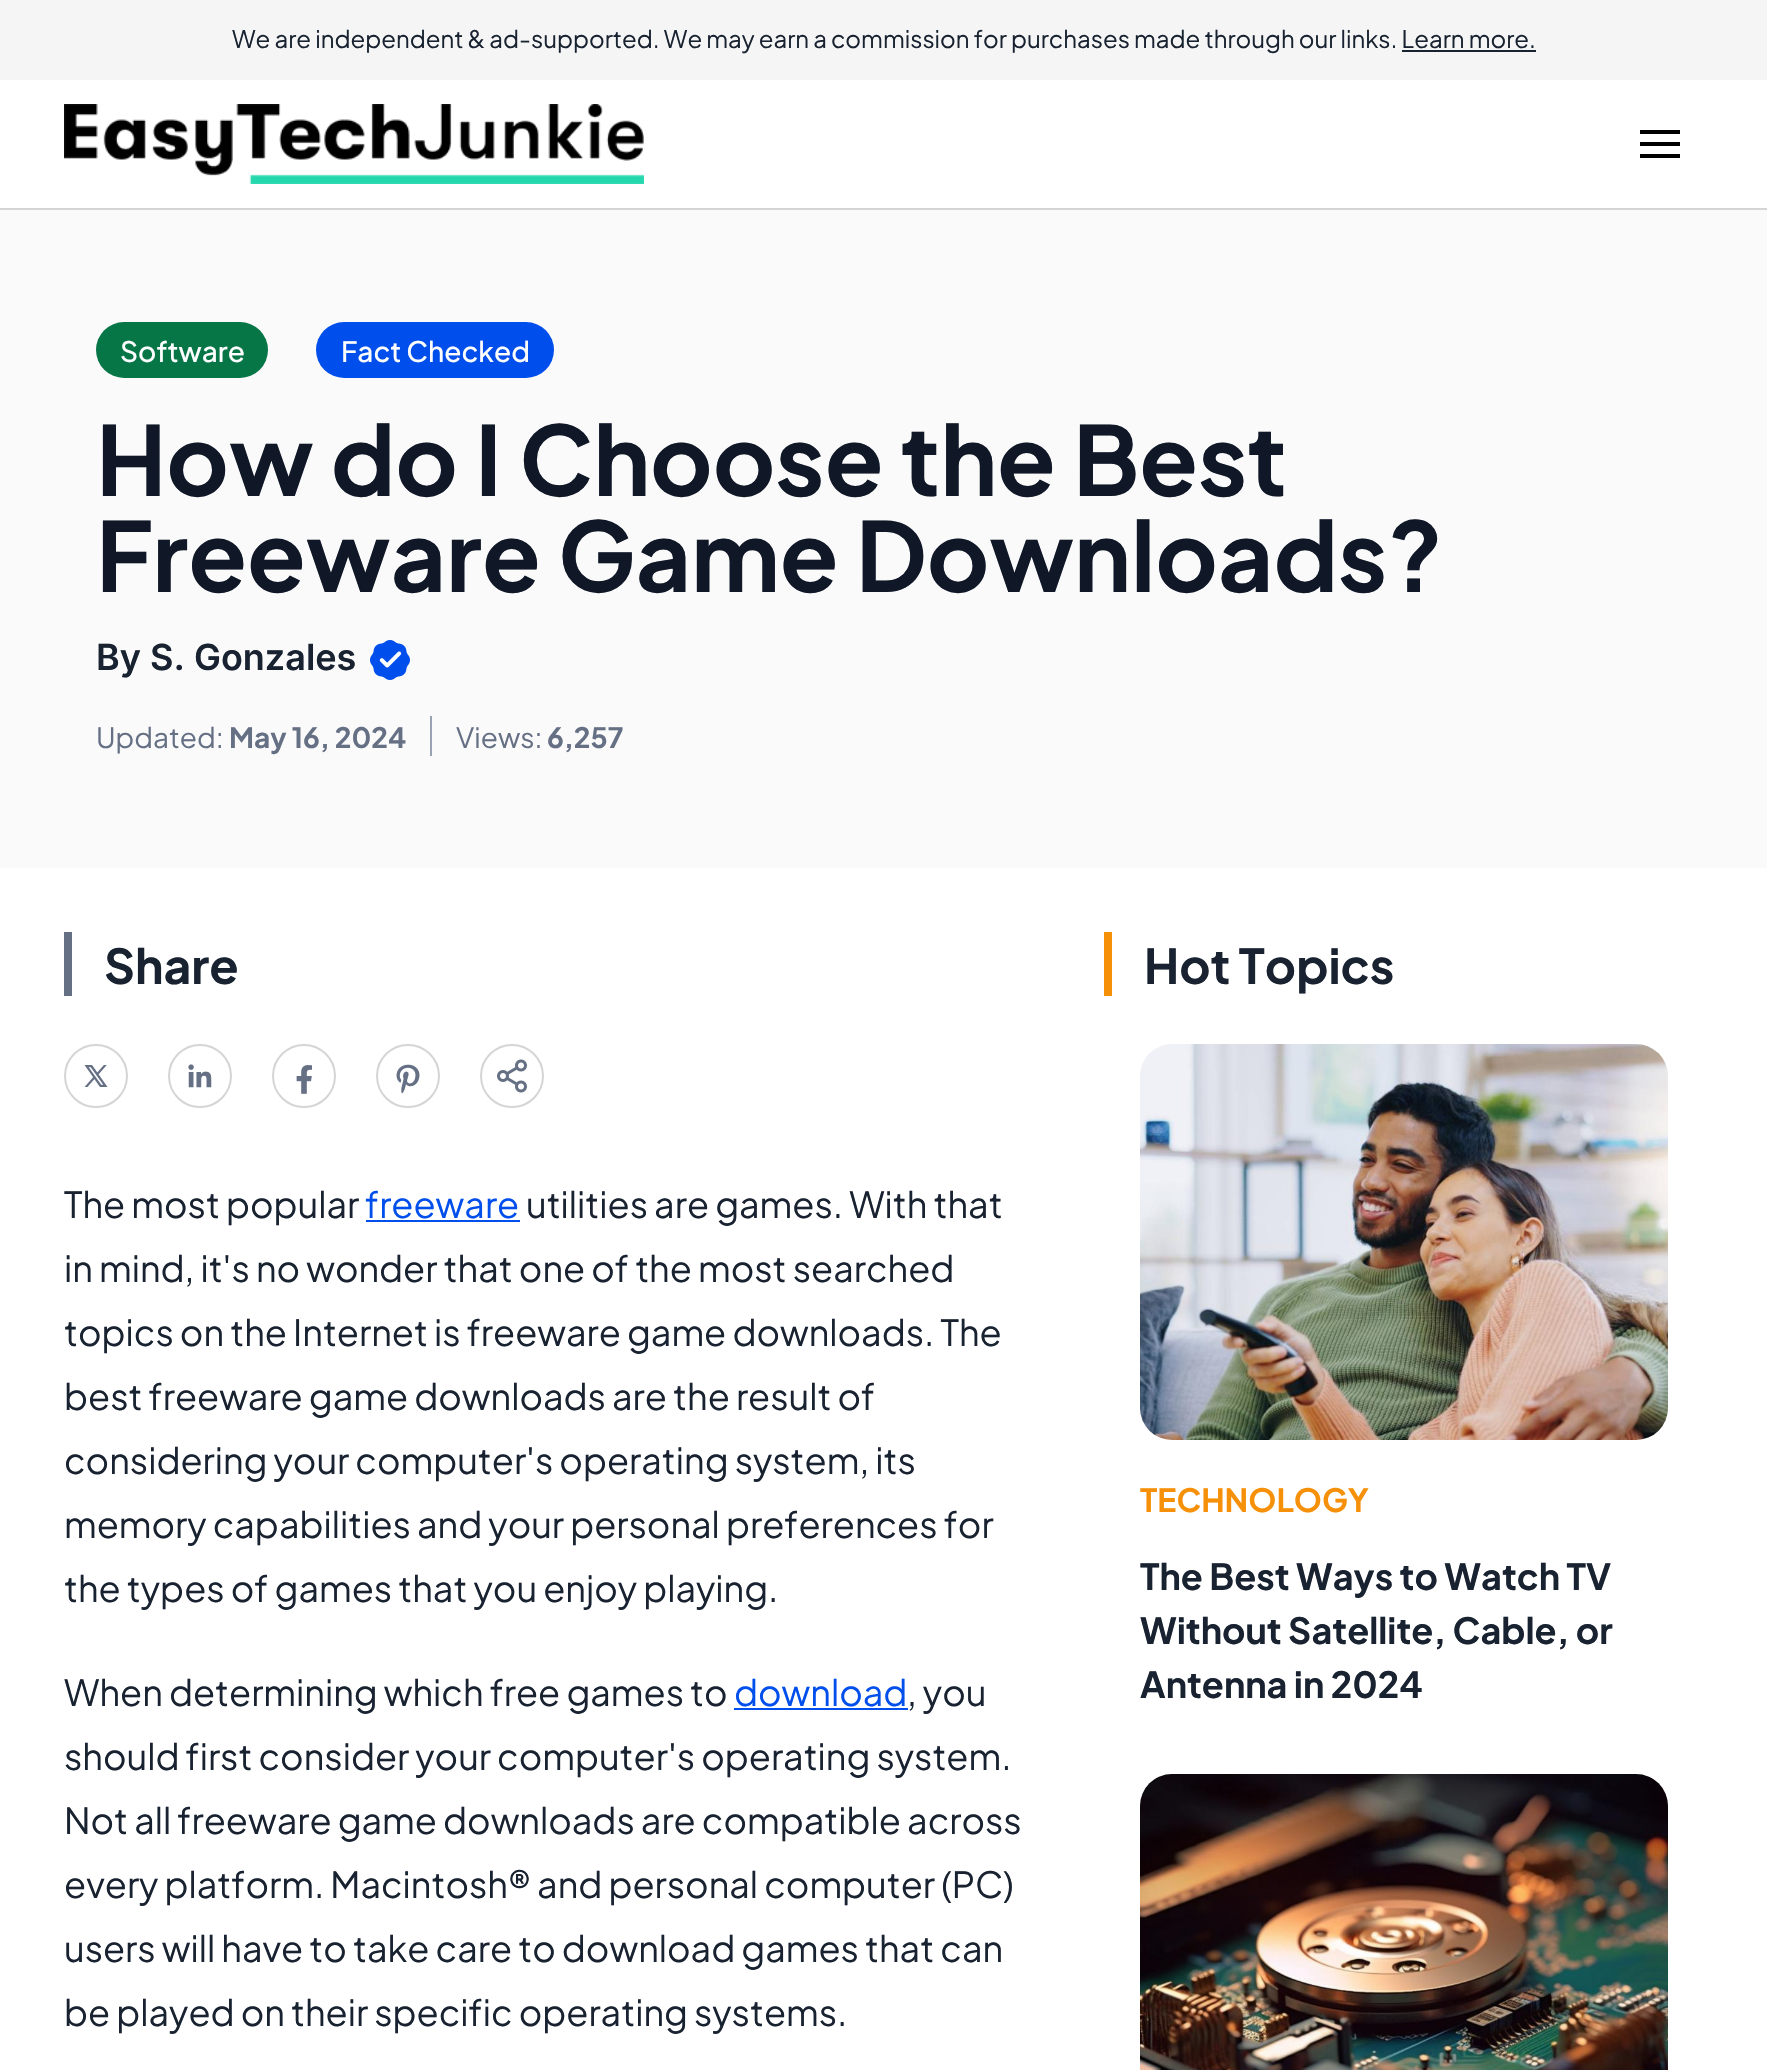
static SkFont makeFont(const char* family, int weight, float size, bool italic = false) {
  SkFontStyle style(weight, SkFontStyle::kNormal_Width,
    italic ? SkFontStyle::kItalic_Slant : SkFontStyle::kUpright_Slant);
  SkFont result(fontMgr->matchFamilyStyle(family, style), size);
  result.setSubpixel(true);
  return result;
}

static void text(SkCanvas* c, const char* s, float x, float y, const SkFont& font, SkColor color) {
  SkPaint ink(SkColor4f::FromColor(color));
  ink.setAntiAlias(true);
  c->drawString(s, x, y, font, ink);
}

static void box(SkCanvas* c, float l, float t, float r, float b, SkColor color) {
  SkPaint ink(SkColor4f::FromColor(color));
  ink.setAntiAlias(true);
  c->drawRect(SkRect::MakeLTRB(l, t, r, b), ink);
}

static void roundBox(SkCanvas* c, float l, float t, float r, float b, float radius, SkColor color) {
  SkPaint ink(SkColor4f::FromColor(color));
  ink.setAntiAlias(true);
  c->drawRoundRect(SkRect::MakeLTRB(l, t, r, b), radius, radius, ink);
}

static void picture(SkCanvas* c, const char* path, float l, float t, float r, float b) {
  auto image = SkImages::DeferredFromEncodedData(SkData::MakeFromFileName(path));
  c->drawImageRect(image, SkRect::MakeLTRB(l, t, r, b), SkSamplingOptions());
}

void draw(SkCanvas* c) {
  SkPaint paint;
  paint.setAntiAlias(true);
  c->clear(0xffffffff);
  box(c, 0, 0, 1767, 80, 0xfff5f5f5);
  SkFont face1 = makeFont("Plus Jakarta Sans", 400, 24);
  text(c, "We are independent & ad-supported. We may earn a commission for purchases made through our links. Learn more.", 232, 48, face1, 0xff182230);
  box(c, 1402, 50, 1536, 52, 0xff182230);
  box(c, 0, 208, 1767, 210, 0xffd5d5d5);
  picture(c, "img_01.png", 64, 104, 644, 184);
  box(c, 1640, 142, 1680, 146, 0xff000000);
  box(c, 1640, 130, 1680, 134, 0xff000000);
  box(c, 1640, 154, 1680, 158, 0xff000000);
  box(c, 0, 210, 1767, 868, 0xfffafafa);
  roundBox(c, 96, 322, 268, 378, 28, 0xff067647);
  SkFont face2 = makeFont("Plus Jakarta Sans", 500, 28);
  text(c, "Software", 120, 362, face2, 0xffffffff);
  roundBox(c, 316, 322, 554, 378, 28, 0xff004eeb);
  text(c, "Fact Checked", 341, 362, face2, 0xffffffff);
  SkFont face3 = makeFont("Plus Jakarta Sans", 700, 96);
  text(c, "How do I Choose the Best", 96, 496, face3, 0xff101828);
  text(c, "Freeware Game Downloads?", 96, 592, face3, 0xff101828);
  SkFont face4 = makeFont("Inter", 600, 36);
  text(c, "By S. Gonzales", 96, 670, face4, 0xff182230);
  picture(c, "img_02.png", 370, 640, 410, 680);
  SkFont face5 = makeFont("Plus Jakarta Sans", 400, 28);
  text(c, "Updated:", 96, 748, face5, 0xff667085);
  SkFont face6 = makeFont("Plus Jakarta Sans", 700, 28);
  text(c, "May 16, 2024", 229, 748, face6, 0xff667085);
  box(c, 430, 716, 432, 756, 0xff98a2b3);
  text(c, "Views:", 456, 748, face5, 0xff667085);
  text(c, "6,257", 547, 748, face6, 0xff667085);
  box(c, 64, 932, 72, 996, 0xff667085);
  SkFont face7 = makeFont("Plus Jakarta Sans", 700, 48);
  text(c, "Share", 104, 984, face7, 0xff182230);
  paint.setStyle(SkPaint::kStroke_Style);
  paint.setStrokeWidth(2);
  paint.setColor(0xffd5d5d5);
  c->drawCircle(96, 1076, 31, paint);
  picture(c, "img_03.png", 84, 1065, 108, 1087);
  c->drawCircle(200, 1076, 31, paint);
  picture(c, "img_04.png", 188, 1064, 212, 1088);
  c->drawCircle(304, 1076, 31, paint);
  picture(c, "img_05.png", 296, 1065, 312, 1094);
  c->drawCircle(408, 1076, 31, paint);
  picture(c, "img_06.png", 396, 1064, 420, 1094);
  c->drawCircle(512, 1076, 31, paint);
  picture(c, "img_07.png", 497, 1059, 527, 1093);
  SkFont face8 = makeFont("Plus Jakarta Sans", 400, 36);
  text(c, "The most popular", 64, 1218, face8, 0xff182230);
  text(c, "freeware", 365, 1218, face8, 0xff004eeb);
  box(c, 366, 1220, 520, 1222, 0xff004eeb);
  text(c, "utilities are games. With that", 526, 1218, face8, 0xff182230);
  text(c, "in mind, it's no wonder that one of the most searched", 64, 1282, face8, 0xff182230);
  text(c, "topics on the Internet is freeware game downloads. The", 64, 1346, face8, 0xff182230);
  text(c, "best freeware game downloads are the result of", 64, 1410, face8, 0xff182230);
  text(c, "considering your computer's operating system, its", 64, 1474, face8, 0xff182230);
  text(c, "memory capabilities and your personal preferences for", 64, 1538, face8, 0xff182230);
  text(c, "the types of games that you enjoy playing.", 64, 1602, face8, 0xff182230);
  text(c, "When determining which free games to", 64, 1706, face8, 0xff182230);
  text(c, "download", 734, 1706, face8, 0xff004eeb);
  box(c, 734, 1708, 908, 1710, 0xff004eeb);
  text(c, ", you", 907, 1706, face8, 0xff182230);
  text(c, "should first consider your computer's operating system.", 64, 1770, face8, 0xff182230);
  text(c, "Not all freeware game downloads are compatible across", 64, 1834, face8, 0xff182230);
  text(c, "every platform. Macintosh® and personal computer (PC)", 64, 1898, face8, 0xff182230);
  text(c, "users will have to take care to download games that can", 64, 1962, face8, 0xff182230);
  text(c, "be played on their specific operating systems.", 64, 2026, face8, 0xff182230);
  box(c, 1104, 932, 1112, 996, 0xfff79009);
  text(c, "Hot Topics", 1144, 984, face7, 0xff182230);
  picture(c, "img_08.png", 1140, 1044, 1668, 1440);
  SkFont face9 = makeFont("Plus Jakarta Sans", 700, 32);
  text(c, "TECHNOLOGY", 1140, 1512, face9, 0xfff79009);
  SkFont face10 = makeFont("Plus Jakarta Sans", 700, 36);
  text(c, "The Best Ways to Watch TV", 1140, 1590, face10, 0xff182230);
  text(c, "Without Satellite, Cable, or", 1140, 1644, face10, 0xff182230);
  text(c, "Antenna in 2024", 1140, 1698, face10, 0xff182230);
  picture(c, "img_09.png", 1140, 1774, 1668, 2070);
}
